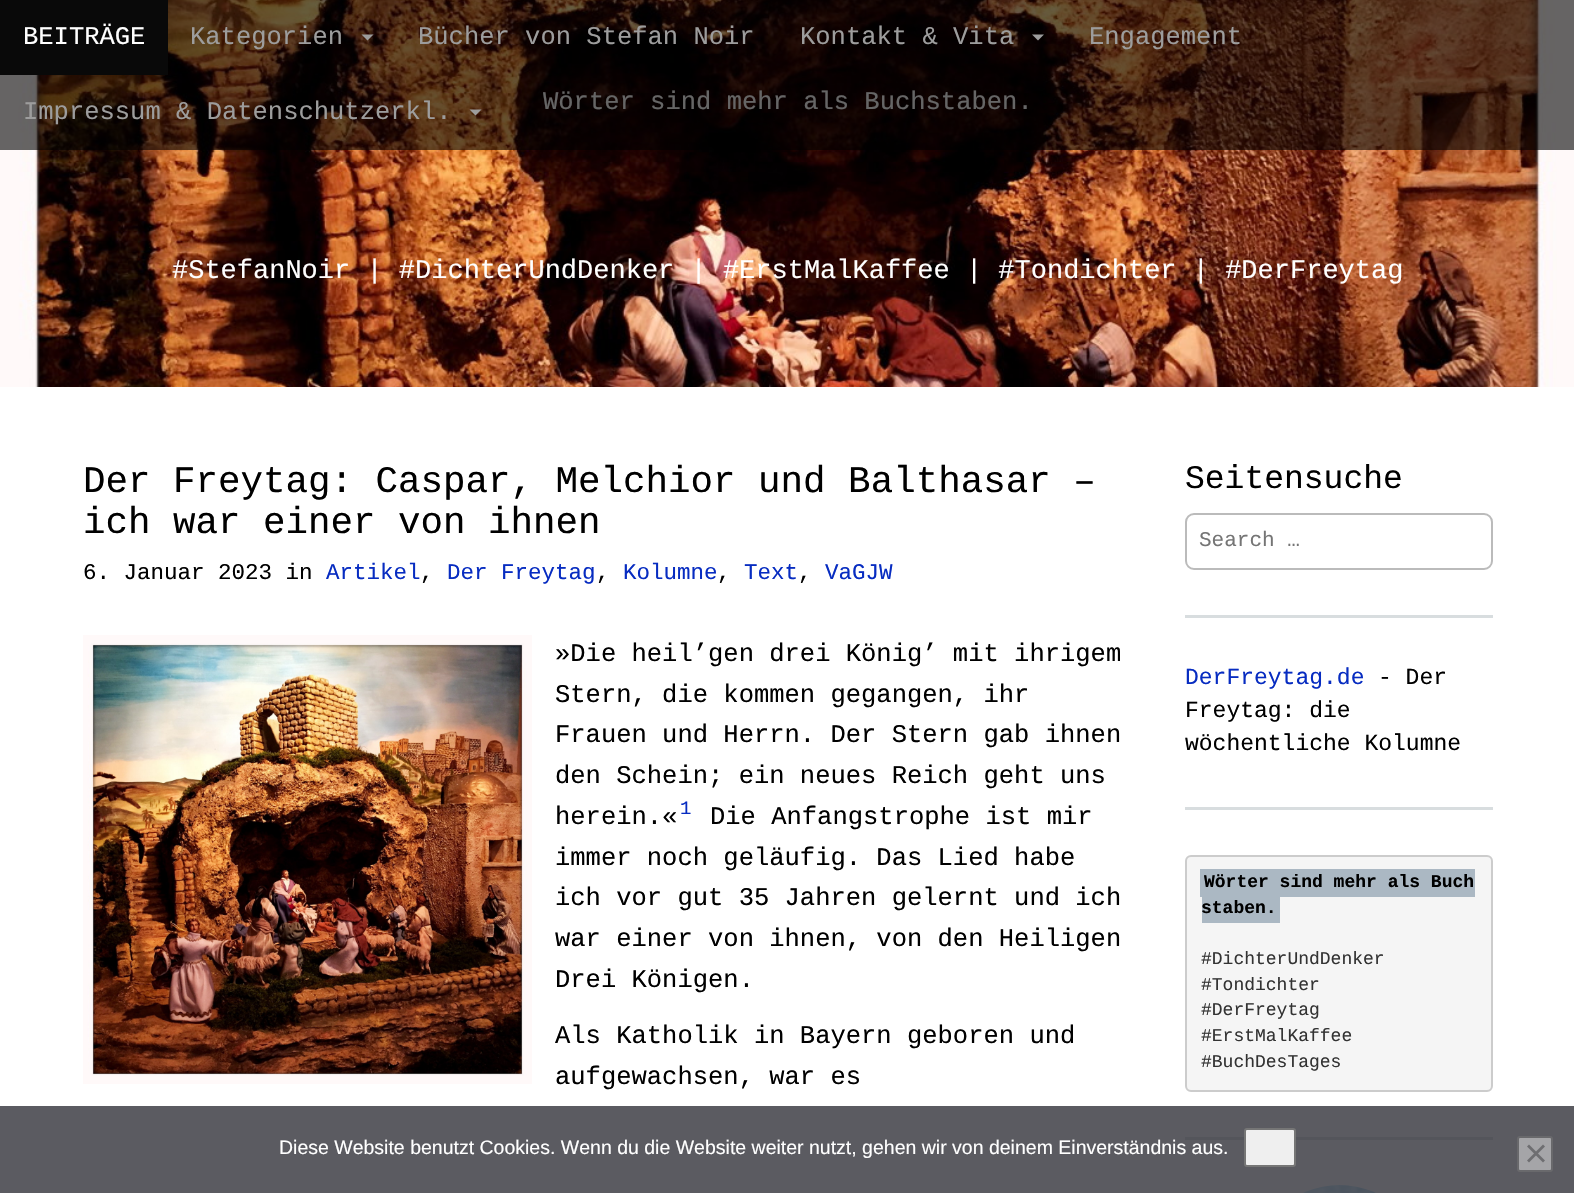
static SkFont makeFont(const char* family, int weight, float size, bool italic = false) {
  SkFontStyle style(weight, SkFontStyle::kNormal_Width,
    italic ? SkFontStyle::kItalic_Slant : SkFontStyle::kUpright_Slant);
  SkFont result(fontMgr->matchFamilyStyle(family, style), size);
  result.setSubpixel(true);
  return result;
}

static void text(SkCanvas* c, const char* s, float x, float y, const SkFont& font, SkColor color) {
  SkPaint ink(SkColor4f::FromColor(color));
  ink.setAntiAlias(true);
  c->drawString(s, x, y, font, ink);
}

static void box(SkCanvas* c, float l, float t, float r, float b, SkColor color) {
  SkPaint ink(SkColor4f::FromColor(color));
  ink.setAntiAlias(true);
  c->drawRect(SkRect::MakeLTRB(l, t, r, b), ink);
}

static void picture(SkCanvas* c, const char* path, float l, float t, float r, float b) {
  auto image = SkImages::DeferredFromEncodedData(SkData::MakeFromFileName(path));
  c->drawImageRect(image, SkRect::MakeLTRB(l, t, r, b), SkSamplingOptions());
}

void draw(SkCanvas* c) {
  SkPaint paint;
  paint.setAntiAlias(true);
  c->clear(0xffffffff);
  picture(c, "img_01.png", 0, 0, 1574, 387);
  SkFont face1 = makeFont("Liberation Mono", 400, 25.5f);
  text(c, "Wörter sind mehr als Buchstaben.", 543, 109, face1, 0xffffffff);
  box(c, 0, 0, 1574, 150, 0x99000000);
  box(c, 0, 0, 168, 75, 0xff090909);
  text(c, "BEITRÄGE", 23, 44, face1, 0xffffffff);
  text(c, "Kategorien", 190, 44, face1, 0xff9d9d9d);
  paint.setColor(0xff9d9d9d);
  c->drawPath(SkPathBuilder().moveTo(361.5f, 34.5f).lineTo(373.5f, 34.5f).lineTo(367.5f, 40.5f).close().detach(), paint);
  text(c, "Bücher von Stefan Noir", 418, 44, face1, 0xff9d9d9d);
  text(c, "Kontakt & Vita", 800, 44, face1, 0xff9d9d9d);
  c->drawPath(SkPathBuilder().moveTo(1032, 34.5f).lineTo(1044, 34.5f).lineTo(1038, 40.5f).close().detach(), paint);
  text(c, "Engagement", 1089, 44, face1, 0xff9d9d9d);
  text(c, "Impressum & Datenschutzerkl.", 23, 119, face1, 0xff9d9d9d);
  c->drawPath(SkPathBuilder().moveTo(469.5f, 109.5f).lineTo(481.5f, 109.5f).lineTo(475.5f, 115.5f).close().detach(), paint);
  SkFont face2 = makeFont("Liberation Mono", 400, 27);
  text(c, "#StefanNoir | #DichterUndDenker | #ErstMalKaffee | #Tondichter | #DerFreytag", 172, 278, face2, 0xffffffff);
  SkFont face3 = makeFont("Liberation Mono", 400, 37.5f);
  text(c, "Der Freytag: Caspar, Melchior und Balthasar –", 83, 492, face3, 0xff000000);
  text(c, "ich war einer von ihnen", 83, 533, face3, 0xff000000);
  SkFont face4 = makeFont("Liberation Mono", 400, 22.5f);
  text(c, "6. Januar 2023 in", 83, 579, face4, 0xff000000);
  text(c, "Artikel", 326, 579, face4, 0xff072cc1);
  text(c, ",", 420, 579, face4, 0xff000000);
  text(c, "Der Freytag", 447, 579, face4, 0xff072cc1);
  text(c, ",", 596, 579, face4, 0xff000000);
  text(c, "Kolumne", 623, 579, face4, 0xff072cc1);
  text(c, ",", 717, 579, face4, 0xff000000);
  text(c, "Text", 744, 579, face4, 0xff072cc1);
  text(c, ",", 798, 579, face4, 0xff000000);
  text(c, "VaGJW", 825, 579, face4, 0xff072cc1);
  picture(c, "img_02.png", 83, 635, 532, 1084);
  text(c, "»Die heil’gen drei König’ mit ihrigem", 555, 661, face1, 0xff000000);
  text(c, "Stern, die kommen gegangen, ihr", 555, 702, face1, 0xff000000);
  text(c, "Frauen und Herrn. Der Stern gab ihnen", 555, 742, face1, 0xff000000);
  text(c, "den Schein; ein neues Reich geht uns", 555, 783, face1, 0xff000000);
  text(c, "herein.«", 555, 824, face1, 0xff000000);
  SkFont face5 = makeFont("Liberation Mono", 400, 19);
  text(c, "1", 680, 814, face5, 0xff072cc1);
  text(c, "Die Anfangstrophe ist mir", 710, 824, face1, 0xff000000);
  text(c, "immer noch geläufig. Das Lied habe", 555, 865, face1, 0xff000000);
  text(c, "ich vor gut 35 Jahren gelernt und ich", 555, 905, face1, 0xff000000);
  text(c, "war einer von ihnen, von den Heiligen", 555, 946, face1, 0xff000000);
  text(c, "Drei Königen.", 555, 987, face1, 0xff000000);
  text(c, "Als Katholik in Bayern geboren und", 555, 1043, face1, 0xff000000);
  text(c, "aufgewachsen, war es", 555, 1084, face1, 0xff000000);
  SkFont face6 = makeFont("Liberation Mono", 400, 33);
  text(c, "Seitensuche", 1185, 488, face6, 0xff000000);
  paint.setStyle(SkPaint::kStroke_Style);
  paint.setStrokeWidth(2);
  paint.setColor(0xffbbbbbb);
  c->drawRoundRect(SkRect::MakeLTRB(1186, 514, 1492, 569), 8, 8, paint);
  SkFont face7 = makeFont("Liberation Mono", 400, 21);
  text(c, "Search …", 1199, 546, face7, 0xff757575);
  box(c, 1185, 615, 1493, 618, 0xffd8dddf);
  SkFont face8 = makeFont("Liberation Mono", 400, 23);
  text(c, "DerFreytag.de", 1185, 684, face8, 0xff072cc1);
  text(c, "- Der", 1378, 684, face8, 0xff000000);
  text(c, "Freytag: die", 1185, 717, face8, 0xff000000);
  text(c, "wöchentliche Kolumne", 1185, 750, face8, 0xff000000);
  box(c, 1185, 807, 1493, 810, 0xffd8dddf);
  paint.setStyle(SkPaint::kFill_Style);
  paint.setColor(0xfff5f5f5);
  c->drawRoundRect(SkRect::MakeLTRB(1186, 856, 1492, 1091), 5, 5, paint);
  paint.setStyle(SkPaint::kStroke_Style);
  paint.setColor(0xffcccccc);
  c->drawRoundRect(SkRect::MakeLTRB(1186, 856, 1492, 1091), 5, 5, paint);
  box(c, 1200, 869, 1475, 897, 0xffabb8c3);
  SkFont face9 = makeFont("Liberation Mono", 700, 18);
  text(c, "Wörter sind mehr als Buch", 1204, 887, face9, 0xff000000);
  box(c, 1202, 897, 1280, 923, 0xffabb8c3);
  text(c, "staben.", 1201, 913, face9, 0xff000000);
  SkFont face10 = makeFont("Liberation Mono", 400, 18);
  text(c, "#DichterUndDenker", 1201, 964, face10, 0xff333333);
  text(c, "#Tondichter", 1201, 990, face10, 0xff333333);
  text(c, "#DerFreytag", 1201, 1015, face10, 0xff333333);
  text(c, "#ErstMalKaffee", 1201, 1041, face10, 0xff333333);
  text(c, "#BuchDesTages", 1201, 1067, face10, 0xff333333);
  box(c, 1185, 1137, 1493, 1140, 0xffd8dddf);
  picture(c, "img_03.png", 1303, 1185, 1376, 1193);
  box(c, 0, 1106, 1574, 1193, 0xcc32323a);
  SkFont face11 = makeFont("Liberation Sans", 400, 19.5f);
  text(c, "Diese Website benutzt Cookies. Wenn du die Website weiter nutzt, gehen wir von deinem Einverständnis aus.", 279, 1154, face11, 0xffffffff);
  paint.setStyle(SkPaint::kFill_Style);
  paint.setColor(0xffefefef);
  c->drawRoundRect(SkRect::MakeLTRB(1245, 1129, 1295, 1166), 2, 2, paint);
  paint.setStyle(SkPaint::kStroke_Style);
  paint.setColor(0xff767676);
  c->drawRoundRect(SkRect::MakeLTRB(1245, 1129, 1295, 1166), 2, 2, paint);
  paint.setStyle(SkPaint::kFill_Style);
  paint.setColor(0xffa5a5a8);
  c->drawRoundRect(SkRect::MakeLTRB(1518, 1137, 1552, 1171), 2, 2, paint);
  paint.setStyle(SkPaint::kStroke_Style);
  paint.setColor(0xff69696c);
  c->drawRoundRect(SkRect::MakeLTRB(1518, 1137, 1552, 1171), 2, 2, paint);
  paint.setStyle(SkPaint::kFill_Style);
  paint.setColor(0xff6e6e71);
  c->drawPath(SkPathBuilder().moveTo(1543, 1144.5f).lineTo(1545, 1146.5f).lineTo(1529, 1162.5f).lineTo(1527, 1160.5f).close().detach(), paint);
  c->drawPath(SkPathBuilder().moveTo(1527, 1146.5f).lineTo(1529, 1144.5f).lineTo(1545, 1160.5f).lineTo(1543, 1162.5f).close().detach(), paint);
}
